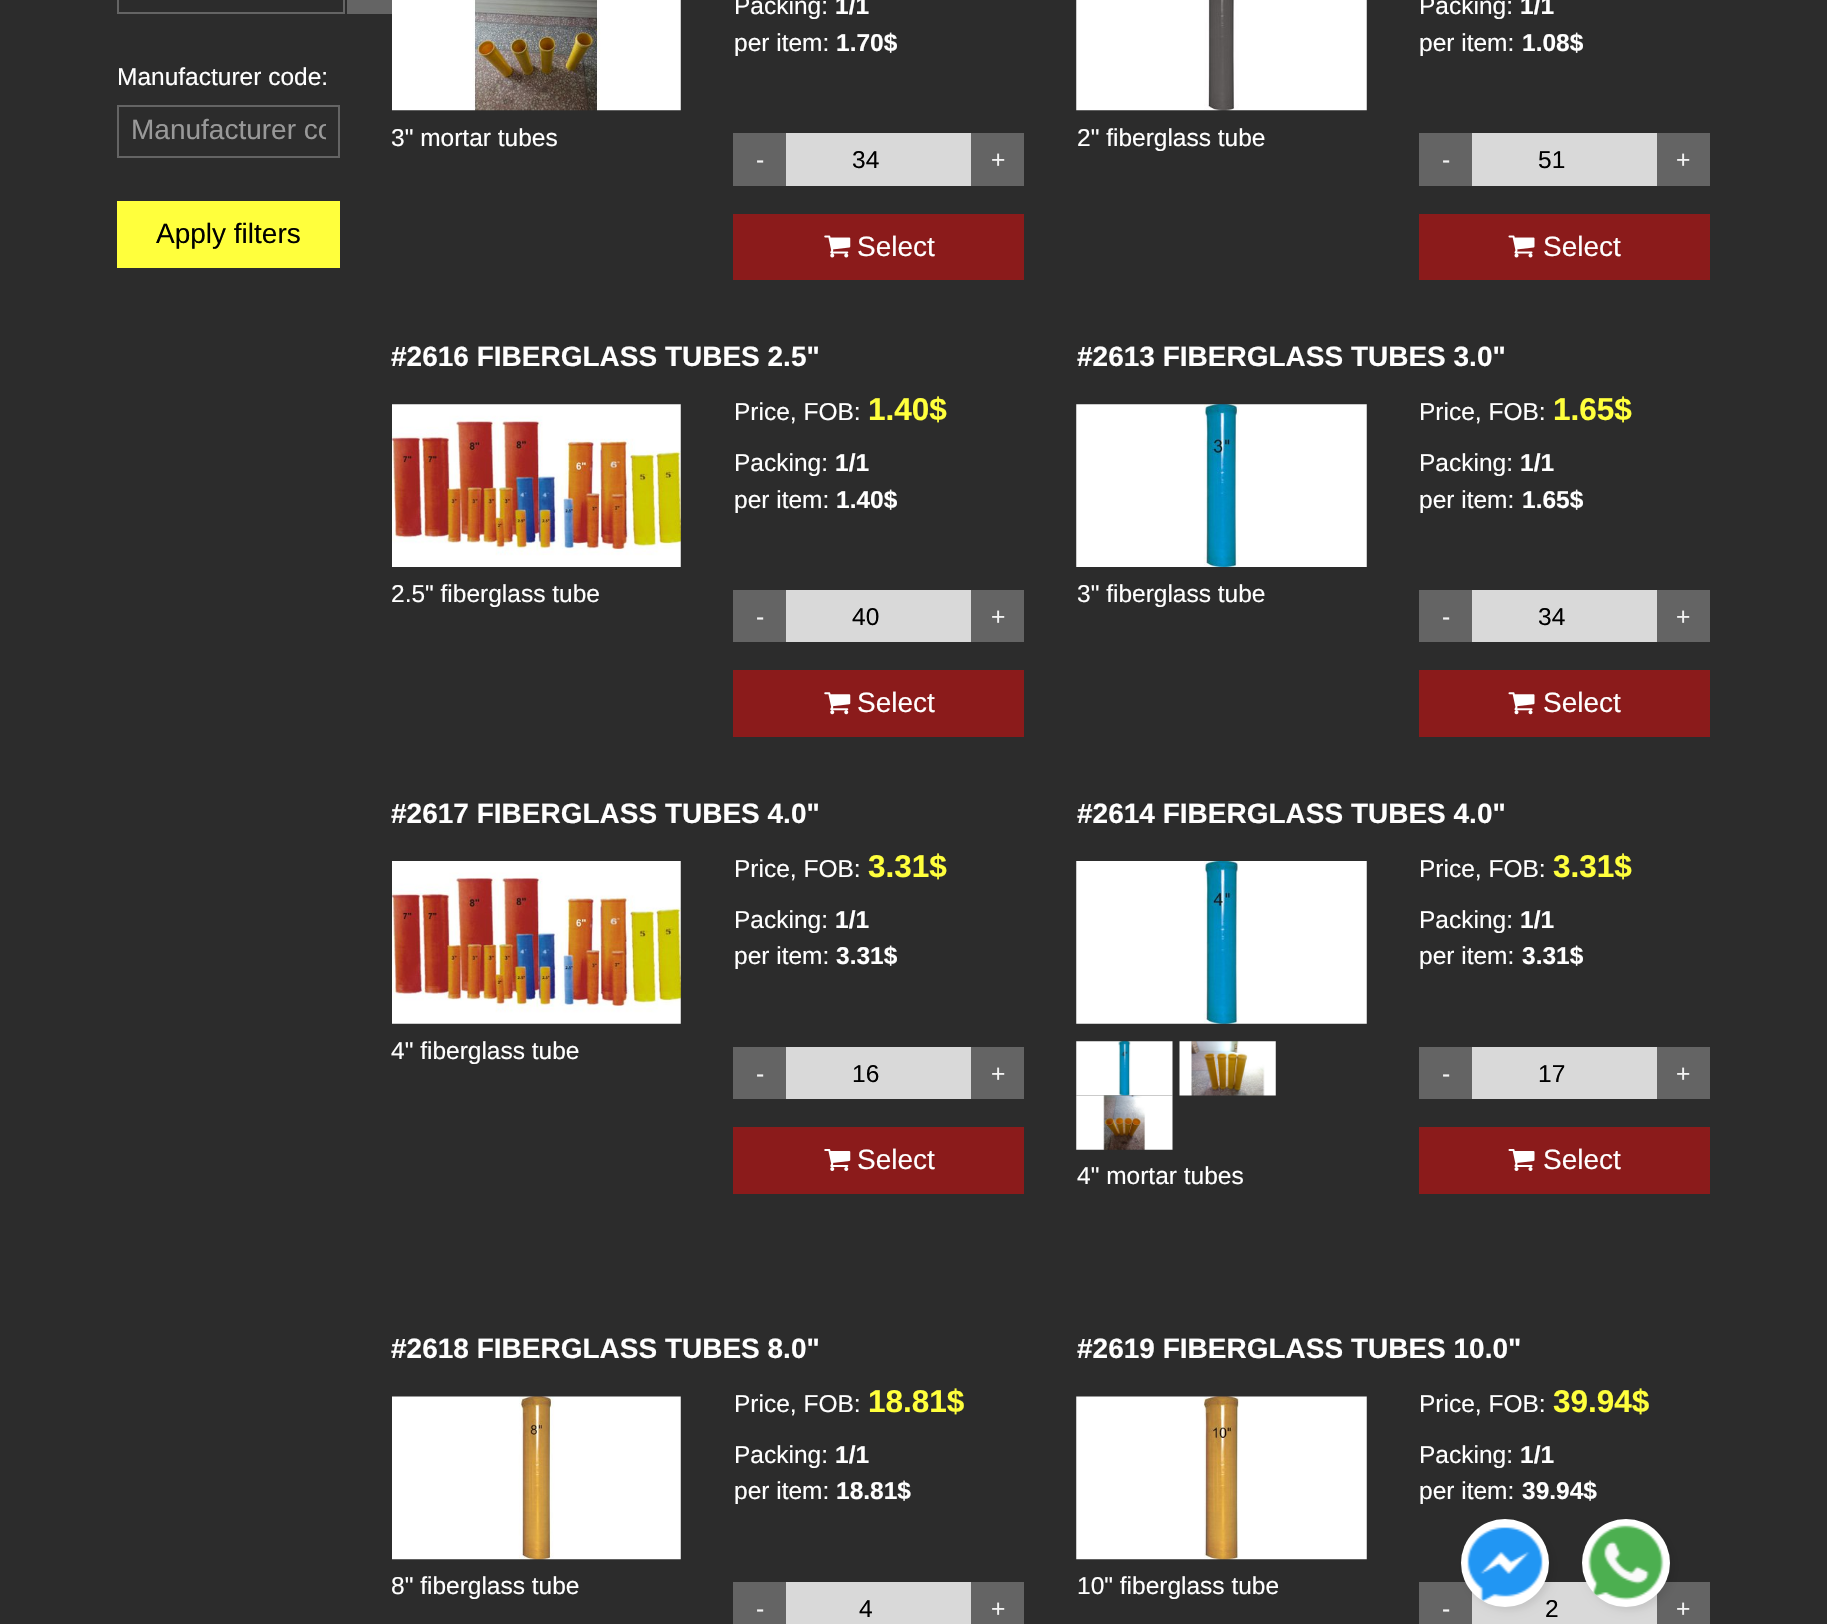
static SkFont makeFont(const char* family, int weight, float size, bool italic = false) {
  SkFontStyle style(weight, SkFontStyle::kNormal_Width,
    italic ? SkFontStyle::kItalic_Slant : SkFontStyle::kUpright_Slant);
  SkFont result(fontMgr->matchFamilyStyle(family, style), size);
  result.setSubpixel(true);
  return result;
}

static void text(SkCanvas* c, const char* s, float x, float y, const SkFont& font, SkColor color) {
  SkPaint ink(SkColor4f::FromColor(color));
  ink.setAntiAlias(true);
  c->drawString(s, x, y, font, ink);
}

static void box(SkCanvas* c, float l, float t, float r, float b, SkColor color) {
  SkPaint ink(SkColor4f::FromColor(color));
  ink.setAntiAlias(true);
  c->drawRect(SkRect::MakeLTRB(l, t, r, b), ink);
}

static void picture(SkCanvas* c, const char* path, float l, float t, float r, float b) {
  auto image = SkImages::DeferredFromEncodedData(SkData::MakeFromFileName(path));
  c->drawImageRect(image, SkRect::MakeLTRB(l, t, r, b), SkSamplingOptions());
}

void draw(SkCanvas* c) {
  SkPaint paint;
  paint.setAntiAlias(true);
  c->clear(0xff2c2c2c);
  paint.setStyle(SkPaint::kStroke_Style);
  paint.setStrokeWidth(2);
  paint.setColor(0xff646464);
  c->drawRect(SkRect::MakeLTRB(118, -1, 344, 13), paint);
  box(c, 347, 0, 392, 14, 0xff646464);
  SkFont face1 = makeFont("Liberation Sans", 400, 24.5f);
  text(c, "Manufacturer code:", 117, 85, face1, 0xffffffff);
  c->drawRect(SkRect::MakeLTRB(118, 106, 339, 157), paint);
  c->save();
  c->clipRect(SkRect::MakeLTRB(131, 116, 326, 147));
  SkFont face2 = makeFont("Liberation Sans", 400, 28);
  text(c, "Manufacturer co", 131, 139, face2, 0xff999999);
  c->restore();
  box(c, 117, 201, 340, 268, 0xffffff3c);
  text(c, "Apply filters", 156, 243, face2, 0xff000000);
  picture(c, "img_01.png", 392, 0, 681, 111);
  text(c, "3\" mortar tubes", 391, 146, face1, 0xffffffff);
  text(c, "Packing:", 734, 14, face1, 0xffffffff);
  SkFont face3 = makeFont("Liberation Sans", 700, 24.5f);
  text(c, "1/1", 835, 14, face3, 0xffffffff);
  text(c, "per item:", 734, 51, face1, 0xffffffff);
  text(c, "1.70$", 836, 51, face3, 0xffffffff);
  box(c, 733, 133, 786, 186, 0xff646464);
  text(c, "-", 756, 168, face1, 0xfff3f3f3);
  box(c, 786, 133, 971, 186, 0xffd9d9d9);
  text(c, "34", 852, 168, face1, 0xff000000);
  box(c, 971, 133, 1024, 186, 0xff646464);
  text(c, "+", 991, 168, face1, 0xfff3f3f3);
  box(c, 733, 214, 1024, 280, 0xff8b1b1b);
  picture(c, "img_02.png", 824, 235, 851, 258);
  text(c, "Select", 857, 256, face2, 0xffffffff);
  picture(c, "img_03.png", 1076, 0, 1367, 111);
  text(c, "2\" fiberglass tube", 1077, 146, face1, 0xffffffff);
  text(c, "Packing:", 1419, 14, face1, 0xffffffff);
  text(c, "1/1", 1520, 14, face3, 0xffffffff);
  text(c, "per item:", 1419, 51, face1, 0xffffffff);
  text(c, "1.08$", 1522, 51, face3, 0xffffffff);
  box(c, 1419, 133, 1472, 186, 0xff646464);
  text(c, "-", 1442, 168, face1, 0xfff3f3f3);
  box(c, 1472, 133, 1657, 186, 0xffd9d9d9);
  text(c, "51", 1538, 168, face1, 0xff000000);
  box(c, 1657, 133, 1710, 186, 0xff646464);
  text(c, "+", 1676, 168, face1, 0xfff3f3f3);
  box(c, 1419, 214, 1710, 280, 0xff8b1b1b);
  picture(c, "img_04.png", 1508, 235, 1535, 258);
  text(c, "Select", 1543, 256, face2, 0xffffffff);
  SkFont face4 = makeFont("Liberation Sans", 700, 28);
  text(c, "#2616 FIBERGLASS TUBES 2.5\"", 391, 366, face4, 0xffffffff);
  picture(c, "img_05.png", 392, 404, 681, 567);
  text(c, "2.5\" fiberglass tube", 391, 602, face1, 0xffffffff);
  text(c, "Price, FOB:", 734, 420, face1, 0xffffffff);
  SkFont face5 = makeFont("Liberation Sans", 700, 31.5f);
  text(c, "1.40$", 868, 420, face5, 0xffffff3c);
  text(c, "Packing:", 734, 471, face1, 0xffffffff);
  text(c, "1/1", 835, 471, face3, 0xffffffff);
  text(c, "per item:", 734, 508, face1, 0xffffffff);
  text(c, "1.40$", 836, 508, face3, 0xffffffff);
  box(c, 733, 590, 786, 642, 0xff646464);
  text(c, "-", 756, 625, face1, 0xfff3f3f3);
  box(c, 786, 590, 971, 642, 0xffd9d9d9);
  text(c, "40", 852, 625, face1, 0xff000000);
  box(c, 971, 590, 1024, 642, 0xff646464);
  text(c, "+", 991, 625, face1, 0xfff3f3f3);
  box(c, 733, 670, 1024, 737, 0xff8b1b1b);
  picture(c, "img_06.png", 824, 692, 851, 715);
  text(c, "Select", 857, 712, face2, 0xffffffff);
  text(c, "#2613 FIBERGLASS TUBES 3.0\"", 1077, 366, face4, 0xffffffff);
  picture(c, "img_07.png", 1076, 404, 1367, 567);
  text(c, "3\" fiberglass tube", 1077, 602, face1, 0xffffffff);
  text(c, "Price, FOB:", 1419, 420, face1, 0xffffffff);
  text(c, "1.65$", 1553, 420, face5, 0xffffff3c);
  text(c, "Packing:", 1419, 471, face1, 0xffffffff);
  text(c, "1/1", 1520, 471, face3, 0xffffffff);
  text(c, "per item:", 1419, 508, face1, 0xffffffff);
  text(c, "1.65$", 1522, 508, face3, 0xffffffff);
  box(c, 1419, 590, 1472, 642, 0xff646464);
  text(c, "-", 1442, 625, face1, 0xfff3f3f3);
  box(c, 1472, 590, 1657, 642, 0xffd9d9d9);
  text(c, "34", 1538, 625, face1, 0xff000000);
  box(c, 1657, 590, 1710, 642, 0xff646464);
  text(c, "+", 1676, 625, face1, 0xfff3f3f3);
  box(c, 1419, 670, 1710, 737, 0xff8b1b1b);
  picture(c, "img_08.png", 1508, 692, 1535, 715);
  text(c, "Select", 1543, 712, face2, 0xffffffff);
  text(c, "#2617 FIBERGLASS TUBES 4.0\"", 391, 823, face4, 0xffffffff);
  picture(c, "img_09.png", 392, 861, 681, 1024);
  text(c, "4\" fiberglass tube", 391, 1059, face1, 0xffffffff);
  text(c, "Price, FOB:", 734, 877, face1, 0xffffffff);
  text(c, "3.31$", 868, 877, face5, 0xffffff3c);
  text(c, "Packing:", 734, 928, face1, 0xffffffff);
  text(c, "1/1", 835, 928, face3, 0xffffffff);
  text(c, "per item:", 734, 964, face1, 0xffffffff);
  text(c, "3.31$", 836, 964, face3, 0xffffffff);
  box(c, 733, 1047, 786, 1099, 0xff646464);
  text(c, "-", 756, 1082, face1, 0xfff3f3f3);
  box(c, 786, 1047, 971, 1099, 0xffd9d9d9);
  text(c, "16", 852, 1082, face1, 0xff000000);
  box(c, 971, 1047, 1024, 1099, 0xff646464);
  text(c, "+", 991, 1082, face1, 0xfff3f3f3);
  box(c, 733, 1127, 1024, 1194, 0xff8b1b1b);
  picture(c, "img_10.png", 824, 1149, 851, 1171);
  text(c, "Select", 857, 1169, face2, 0xffffffff);
  text(c, "#2614 FIBERGLASS TUBES 4.0\"", 1077, 823, face4, 0xffffffff);
  text(c, "Price, FOB:", 1419, 877, face1, 0xffffffff);
  text(c, "3.31$", 1553, 877, face5, 0xffffff3c);
  text(c, "Packing:", 1419, 928, face1, 0xffffffff);
  text(c, "1/1", 1520, 928, face3, 0xffffffff);
  text(c, "per item:", 1419, 964, face1, 0xffffffff);
  text(c, "3.31$", 1522, 964, face3, 0xffffffff);
  box(c, 1419, 1047, 1472, 1099, 0xff646464);
  text(c, "-", 1442, 1082, face1, 0xfff3f3f3);
  box(c, 1472, 1047, 1657, 1099, 0xffd9d9d9);
  text(c, "17", 1538, 1082, face1, 0xff000000);
  box(c, 1657, 1047, 1710, 1099, 0xff646464);
  text(c, "+", 1676, 1082, face1, 0xfff3f3f3);
  box(c, 1419, 1127, 1710, 1194, 0xff8b1b1b);
  picture(c, "img_11.png", 1508, 1149, 1535, 1171);
  text(c, "Select", 1543, 1169, face2, 0xffffffff);
  picture(c, "img_12.png", 1076, 861, 1367, 1024);
  picture(c, "img_13.png", 1076, 1041, 1173, 1096);
  picture(c, "img_14.png", 1179, 1041, 1276, 1096);
  picture(c, "img_15.png", 1076, 1095, 1173, 1150);
  text(c, "4\" mortar tubes", 1077, 1184, face1, 0xffffffff);
  text(c, "#2618 FIBERGLASS TUBES 8.0\"", 391, 1358, face4, 0xffffffff);
  picture(c, "img_16.png", 392, 1396, 681, 1560);
  text(c, "8\" fiberglass tube", 391, 1594, face1, 0xffffffff);
  text(c, "Price, FOB:", 734, 1412, face1, 0xffffffff);
  text(c, "18.81$", 868, 1412, face5, 0xffffff3c);
  text(c, "Packing:", 734, 1463, face1, 0xffffffff);
  text(c, "1/1", 835, 1463, face3, 0xffffffff);
  text(c, "per item:", 734, 1499, face1, 0xffffffff);
  text(c, "18.81$", 836, 1499, face3, 0xffffffff);
  box(c, 733, 1582, 786, 1624, 0xff646464);
  text(c, "-", 756, 1617, face1, 0xfff3f3f3);
  box(c, 786, 1582, 971, 1624, 0xffd9d9d9);
  text(c, "4", 859, 1617, face1, 0xff000000);
  box(c, 971, 1582, 1024, 1624, 0xff646464);
  text(c, "+", 991, 1617, face1, 0xfff3f3f3);
  text(c, "#2619 FIBERGLASS TUBES 10.0\"", 1077, 1358, face4, 0xffffffff);
  picture(c, "img_17.png", 1076, 1396, 1367, 1560);
  text(c, "10\" fiberglass tube", 1077, 1594, face1, 0xffffffff);
  text(c, "Price, FOB:", 1419, 1412, face1, 0xffffffff);
  text(c, "39.94$", 1553, 1412, face5, 0xffffff3c);
  text(c, "Packing:", 1419, 1463, face1, 0xffffffff);
  text(c, "1/1", 1520, 1463, face3, 0xffffffff);
  text(c, "per item:", 1419, 1499, face1, 0xffffffff);
  text(c, "39.94$", 1522, 1499, face3, 0xffffffff);
  box(c, 1419, 1582, 1472, 1624, 0xff646464);
  text(c, "-", 1442, 1617, face1, 0xfff3f3f3);
  box(c, 1472, 1582, 1657, 1624, 0xffd9d9d9);
  text(c, "2", 1545, 1617, face1, 0xff000000);
  box(c, 1657, 1582, 1710, 1624, 0xff646464);
  text(c, "+", 1676, 1617, face1, 0xfff3f3f3);
  paint.setStyle(SkPaint::kFill_Style);
  paint.setColor(0x1a000000);
  paint.setMaskFilter(SkMaskFilter::MakeBlur(kNormal_SkBlurStyle, 4.5f));
  c->drawRoundRect(SkRect::MakeLTRB(1465, 1523, 1552, 1610), 43.5f, 43.5f, paint);
  paint.setMaskFilter(nullptr);
  paint.setColor(0xffffffff);
  c->drawCircle(1505, 1563, 44, paint);
  picture(c, "img_18.png", 1467, 1527, 1543, 1602);
  paint.setColor(0x1a000000);
  paint.setMaskFilter(SkMaskFilter::MakeBlur(kNormal_SkBlurStyle, 4.5f));
  c->drawRoundRect(SkRect::MakeLTRB(1586, 1523, 1673, 1610), 43.5f, 43.5f, paint);
  paint.setMaskFilter(nullptr);
  paint.setColor(0xffffffff);
  c->drawCircle(1626, 1563, 44, paint);
  picture(c, "img_19.png", 1588, 1525, 1664, 1600);
}
